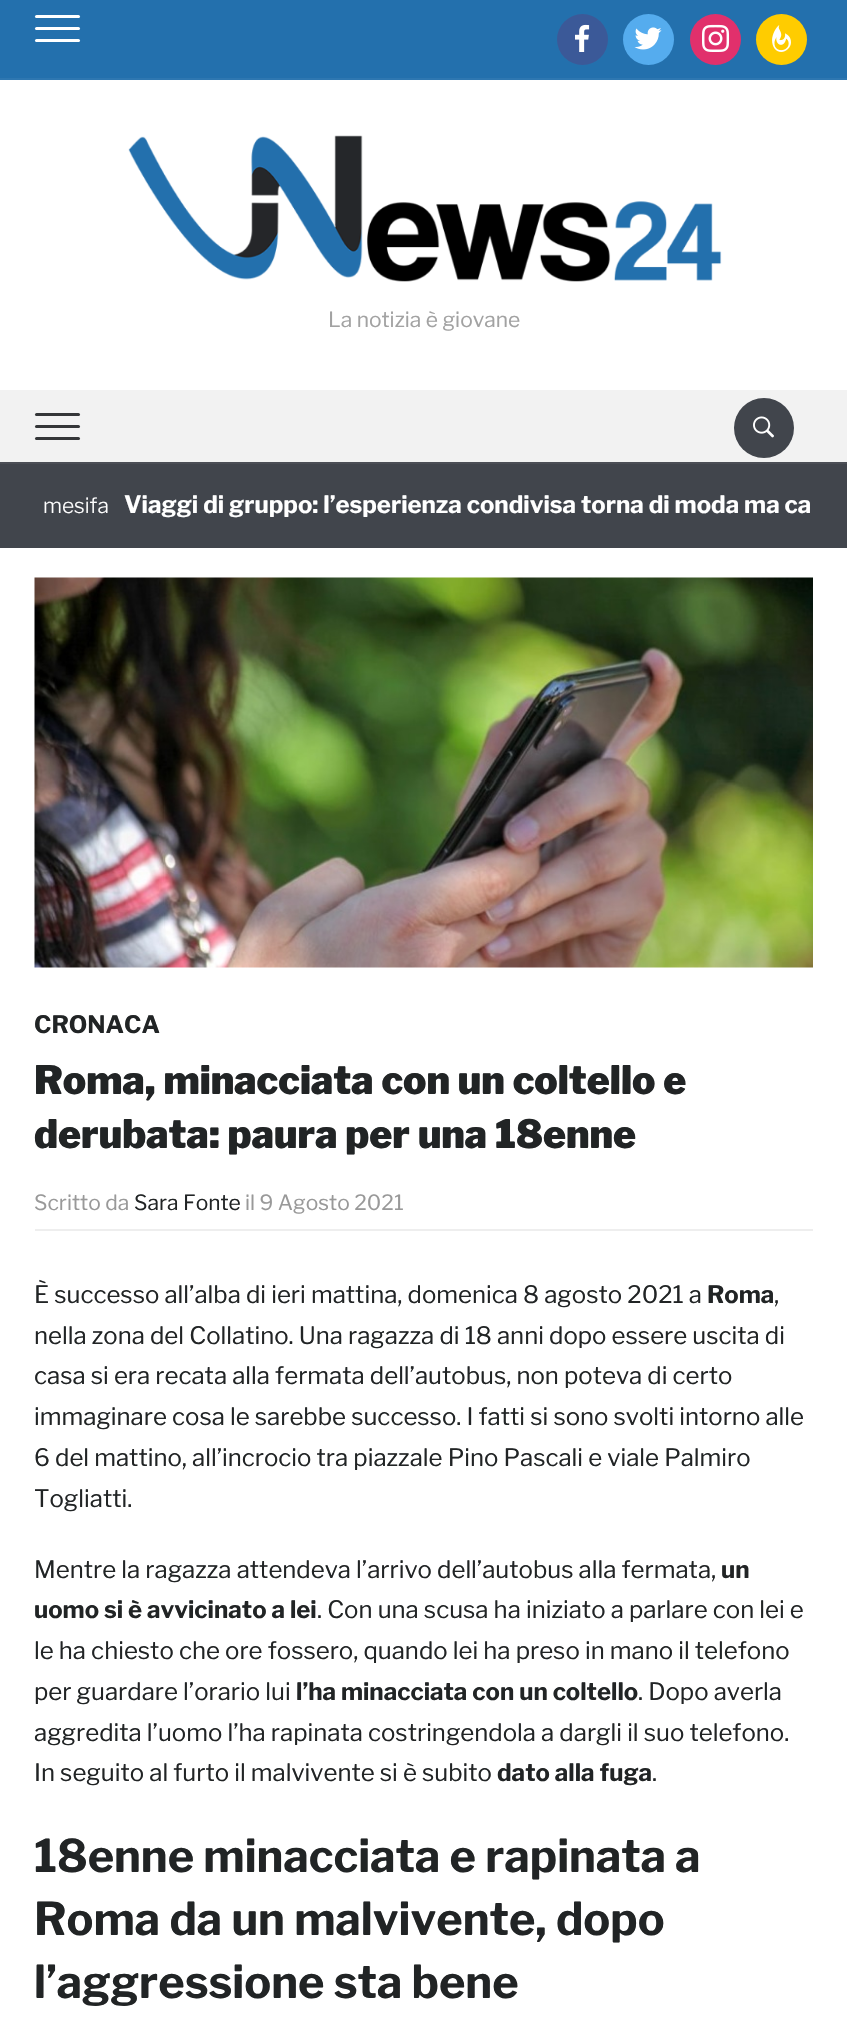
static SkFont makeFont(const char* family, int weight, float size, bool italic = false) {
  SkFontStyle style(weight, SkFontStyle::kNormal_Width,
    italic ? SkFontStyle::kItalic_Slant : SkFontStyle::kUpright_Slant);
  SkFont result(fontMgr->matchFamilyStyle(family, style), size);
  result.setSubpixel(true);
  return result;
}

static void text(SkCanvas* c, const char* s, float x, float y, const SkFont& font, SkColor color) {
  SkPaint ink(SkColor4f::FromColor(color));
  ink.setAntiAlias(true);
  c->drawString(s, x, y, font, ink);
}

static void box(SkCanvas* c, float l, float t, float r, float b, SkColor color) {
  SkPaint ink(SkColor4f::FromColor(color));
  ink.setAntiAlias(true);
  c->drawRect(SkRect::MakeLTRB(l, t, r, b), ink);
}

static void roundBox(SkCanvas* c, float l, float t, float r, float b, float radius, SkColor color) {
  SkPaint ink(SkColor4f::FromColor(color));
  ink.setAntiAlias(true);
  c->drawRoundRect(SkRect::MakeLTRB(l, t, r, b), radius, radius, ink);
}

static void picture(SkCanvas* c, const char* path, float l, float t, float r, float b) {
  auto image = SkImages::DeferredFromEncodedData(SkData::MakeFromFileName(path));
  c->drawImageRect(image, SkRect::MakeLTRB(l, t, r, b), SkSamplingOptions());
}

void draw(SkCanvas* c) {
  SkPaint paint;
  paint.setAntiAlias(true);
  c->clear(0xffffffff);
  box(c, 0, 0, 847, 78, 0xff2370ad);
  box(c, 0, 78, 847, 80, 0xff2e77b1);
  roundBox(c, 35, 15, 80, 18, 1.5f, 0xffffffff);
  roundBox(c, 35, 27, 80, 30, 1.5f, 0xffffffff);
  roundBox(c, 35, 39, 80, 42, 1.5f, 0xffffffff);
  paint.setColor(0xff3b5998);
  c->drawCircle(582.5f, 39.5f, 25.5f, paint);
  picture(c, "img_01.png", 575, 24, 590, 52);
  paint.setColor(0xff55acee);
  c->drawCircle(648.5f, 39.5f, 25.5f, paint);
  picture(c, "img_02.png", 634, 27, 662, 50);
  paint.setColor(0xffe1306c);
  c->drawCircle(715.5f, 39.5f, 25.5f, paint);
  picture(c, "img_03.png", 702, 24, 730, 52);
  paint.setColor(0xffffcc00);
  c->drawCircle(781.5f, 39.5f, 25.5f, paint);
  picture(c, "img_04.png", 772, 25, 791, 52);
  picture(c, "img_05.png", 128, 135, 722, 282);
  SkFont face1 = makeFont("Libre Franklin", 400, 21);
  text(c, "La notizia è giovane", 328, 327, face1, 0xffa2a2a2);
  box(c, 0, 390, 847, 462, 0xfff2f2f2);
  roundBox(c, 35, 413, 80, 416, 1.5f, 0xff343638);
  roundBox(c, 35, 425, 80, 428, 1.5f, 0xff343638);
  roundBox(c, 35, 437, 80, 440, 1.5f, 0xff343638);
  paint.setColor(0xff41454c);
  c->drawCircle(764, 428, 30, paint);
  picture(c, "img_06.png", 753, 416, 774, 438);
  box(c, 0, 464, 847, 548, 0xff41454c);
  box(c, 0, 462, 847, 464, 0xff4b4e55);
  SkFont face2 = makeFont("Libre Franklin", 300, 21);
  text(c, "mesifa", 43, 513, face2, 0xffffffff);
  SkFont face3 = makeFont("Libre Franklin", 700, 24);
  text(c, "Viaggi di gruppo: l’esperienza condivisa torna di moda ma ca", 124, 513, face3, 0xffffffff);
  picture(c, "img_07.png", 34, 577, 813, 968);
  text(c, "CRONACA", 34, 1033, face3, 0xff212425);
  SkFont face4 = makeFont("Libre Franklin", 900, 39);
  text(c, "Roma, minacciata con un coltello e", 34, 1094, face4, 0xff212425);
  text(c, "derubata: paura per una 18enne", 34, 1148, face4, 0xff212425);
  box(c, 35, 1229, 813, 1231, 0xffeeeeee);
  text(c, "Scritto da", 34, 1210, face1, 0xff999999);
  text(c, "Sara Fonte", 134, 1210, face1, 0xff212425);
  text(c, "il 9 Agosto 2021", 245, 1210, face1, 0xff999999);
  SkFont face5 = makeFont("Libre Franklin", 400, 24);
  text(c, "È successo all’alba di ieri mattina, domenica 8 agosto 2021 a", 34, 1303, face5, 0xff212425);
  text(c, "Roma", 707, 1303, face3, 0xff212425);
  text(c, ",", 774, 1303, face5, 0xff212425);
  text(c, "nella zona del Collatino. Una ragazza di 18 anni dopo essere uscita di", 34, 1344, face5, 0xff212425);
  text(c, "casa si era recata alla fermata dell’autobus, non poteva di certo", 34, 1384, face5, 0xff212425);
  text(c, "immaginare cosa le sarebbe successo. I fatti si sono svolti intorno alle", 34, 1425, face5, 0xff212425);
  text(c, "6 del mattino, all’incrocio tra piazzale Pino Pascali e viale Palmiro", 34, 1466, face5, 0xff212425);
  text(c, "Togliatti.", 34, 1507, face5, 0xff212425);
  text(c, "Mentre la ragazza attendeva l’arrivo dell’autobus alla fermata,", 34, 1578, face5, 0xff212425);
  text(c, "un", 721, 1578, face3, 0xff212425);
  text(c, "uomo si è avvicinato a lei", 34, 1618, face3, 0xff212425);
  text(c, ". Con una scusa ha iniziato a parlare con lei e", 317, 1618, face5, 0xff212425);
  text(c, "le ha chiesto che ore fossero, quando lei ha preso in mano il telefono", 34, 1659, face5, 0xff212425);
  text(c, "per guardare l’orario lui", 34, 1700, face5, 0xff212425);
  text(c, "l’ha minacciata con un coltello", 296, 1700, face3, 0xff212425);
  text(c, ". Dopo averla", 638, 1700, face5, 0xff212425);
  text(c, "aggredita l’uomo l’ha rapinata costringendola a dargli il suo telefono.", 34, 1741, face5, 0xff212425);
  text(c, "In seguito al furto il malvivente si è subito", 34, 1781, face5, 0xff212425);
  text(c, "dato alla fuga", 497, 1781, face3, 0xff212425);
  text(c, ".", 652, 1781, face5, 0xff212425);
  SkFont face6 = makeFont("Libre Franklin", 700, 45);
  text(c, "18enne minacciata e rapinata a", 34, 1872, face6, 0xff212425);
  text(c, "Roma da un malvivente, dopo", 34, 1935, face6, 0xff212425);
  text(c, "l’aggressione sta bene", 34, 1998, face6, 0xff212425);
}
